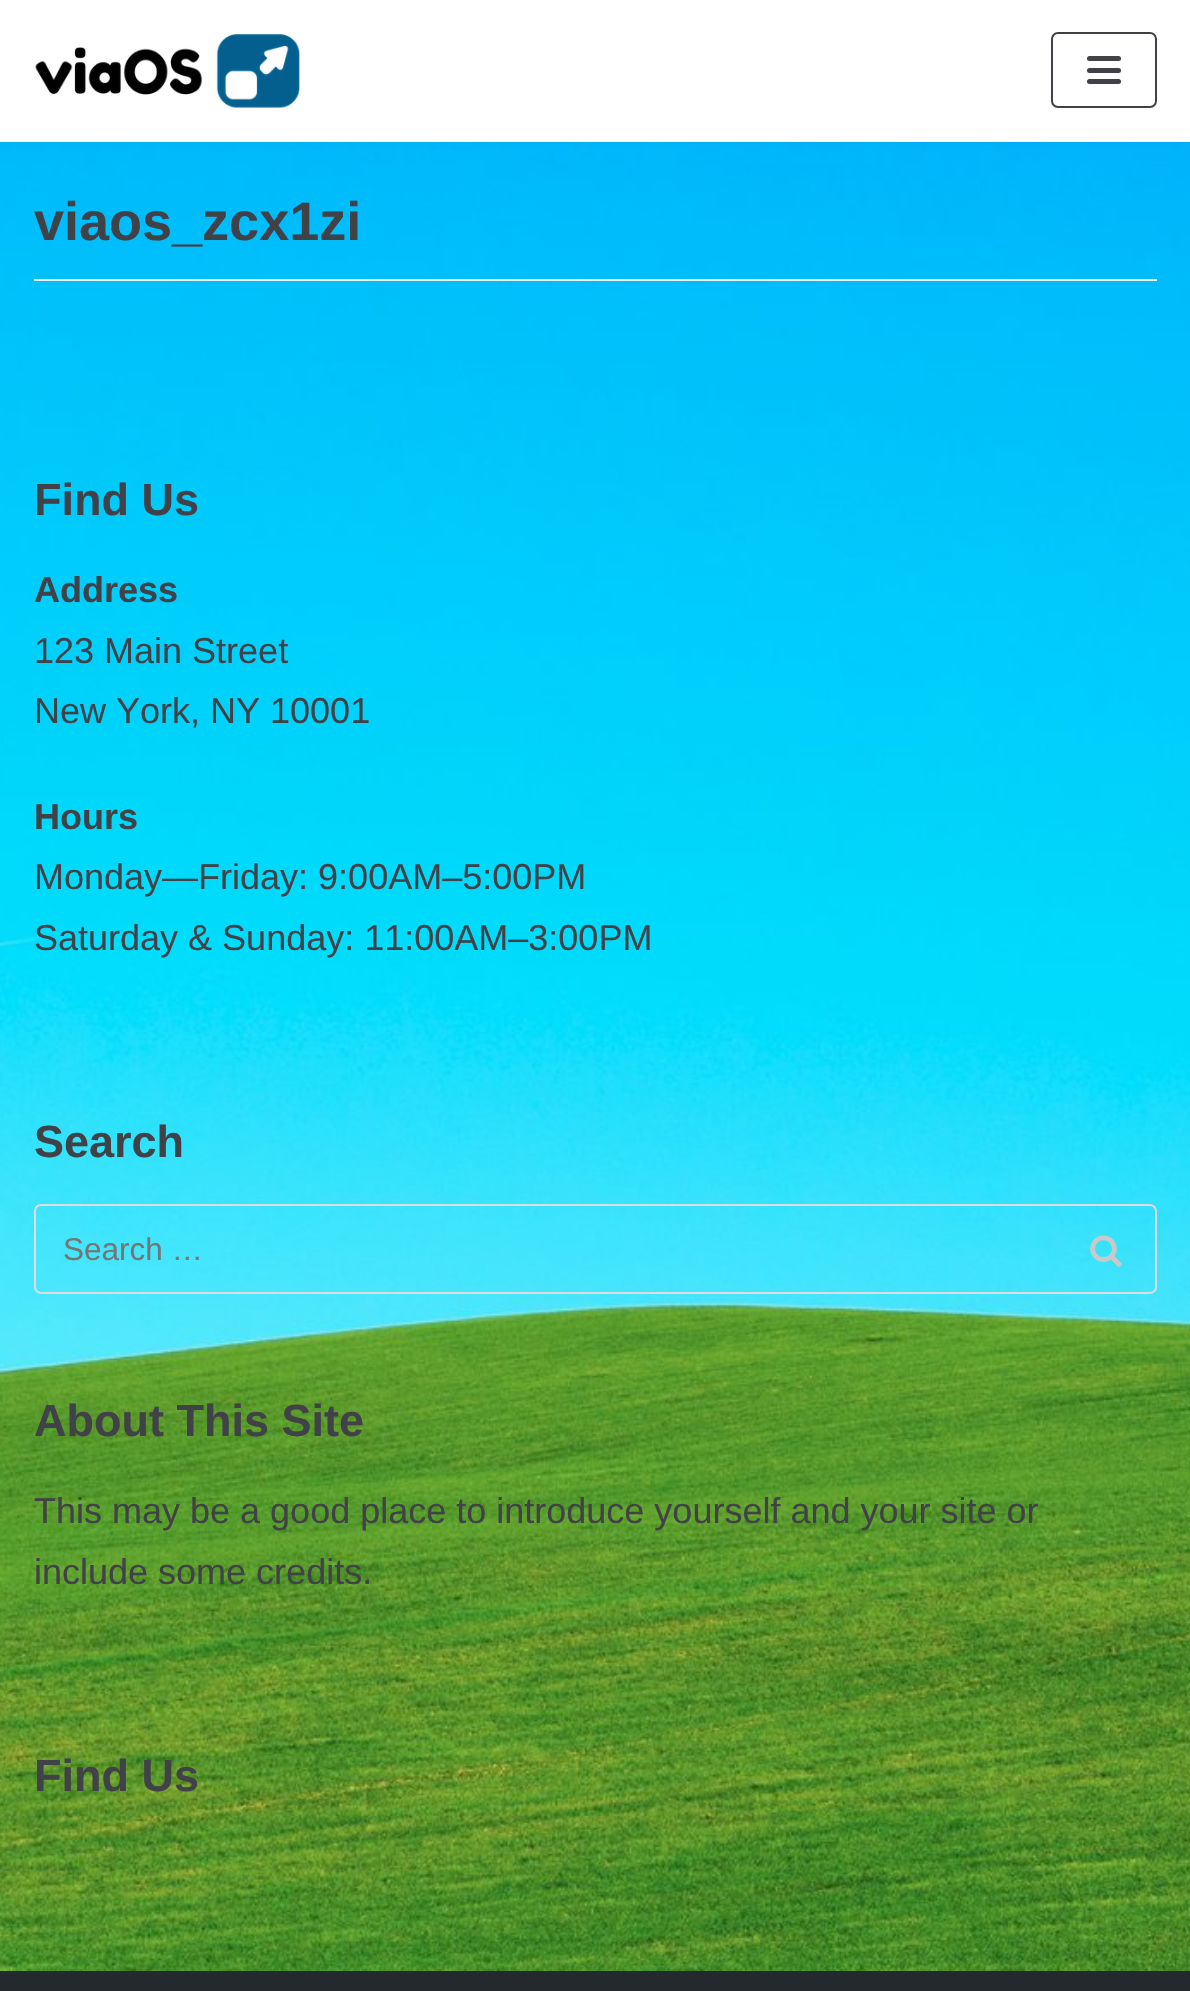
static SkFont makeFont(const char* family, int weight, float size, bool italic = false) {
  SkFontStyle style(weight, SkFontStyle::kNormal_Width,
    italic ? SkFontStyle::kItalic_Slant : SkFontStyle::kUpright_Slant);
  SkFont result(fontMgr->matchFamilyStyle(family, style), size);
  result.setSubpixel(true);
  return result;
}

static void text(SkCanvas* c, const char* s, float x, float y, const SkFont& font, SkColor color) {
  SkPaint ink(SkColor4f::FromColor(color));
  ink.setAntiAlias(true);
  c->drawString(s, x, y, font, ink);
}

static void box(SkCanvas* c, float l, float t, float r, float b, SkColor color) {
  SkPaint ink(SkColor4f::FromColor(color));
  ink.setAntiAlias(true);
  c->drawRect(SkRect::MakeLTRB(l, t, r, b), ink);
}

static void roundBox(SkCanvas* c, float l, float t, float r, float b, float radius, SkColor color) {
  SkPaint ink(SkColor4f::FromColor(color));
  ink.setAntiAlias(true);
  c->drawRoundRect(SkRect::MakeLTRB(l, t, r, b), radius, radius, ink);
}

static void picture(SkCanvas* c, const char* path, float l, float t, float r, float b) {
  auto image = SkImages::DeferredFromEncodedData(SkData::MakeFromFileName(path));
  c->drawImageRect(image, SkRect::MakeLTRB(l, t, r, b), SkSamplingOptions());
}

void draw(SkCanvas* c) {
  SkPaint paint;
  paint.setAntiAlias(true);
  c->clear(0xffffffff);
  picture(c, "img_01.png", 0, 142, 1190, 1971);
  paint.setColor(0x1a000000);
  paint.setMaskFilter(SkMaskFilter::MakeBlur(kNormal_SkBlurStyle, 3.5f));
  c->drawRect(SkRect::MakeLTRB(0, -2, 1190, 140), paint);
  paint.setMaskFilter(nullptr);
  box(c, 0, 0, 1190, 142, 0xffffffff);
  picture(c, "img_02.png", 35, 33, 300, 108);
  paint.setStyle(SkPaint::kStroke_Style);
  paint.setStrokeWidth(2);
  paint.setColor(0xff404248);
  c->drawRoundRect(SkRect::MakeLTRB(1052, 33, 1156, 107), 6, 6, paint);
  roundBox(c, 1087, 56, 1121, 61, 2.5f, 0xff404248);
  roundBox(c, 1087, 68, 1121, 73, 2.5f, 0xff404248);
  roundBox(c, 1087, 79, 1121, 84, 2.5f, 0xff404248);
  box(c, 34, 279, 1157, 281, 0xfff0f0f0);
  SkFont face1 = makeFont("Liberation Sans", 700, 54);
  text(c, "viaos_zcx1zi", 34, 240, face1, 0xff404248);
  SkFont face2 = makeFont("Liberation Sans", 700, 45);
  text(c, "Find Us", 34, 515, face2, 0xff404248);
  SkFont face3 = makeFont("Liberation Sans", 700, 36);
  text(c, "Address", 34, 602, face3, 0xff404248);
  SkFont face4 = makeFont("Liberation Sans", 400, 36);
  text(c, "123 Main Street", 34, 663, face4, 0xff404248);
  text(c, "New York, NY 10001", 34, 723, face4, 0xff404248);
  text(c, "Hours", 34, 829, face3, 0xff404248);
  text(c, "Monday—Friday: 9:00AM–5:00PM", 34, 889, face4, 0xff404248);
  text(c, "Saturday & Sunday: 11:00AM–3:00PM", 34, 950, face4, 0xff404248);
  text(c, "Search", 34, 1157, face2, 0xff404248);
  paint.setColor(0xffdddddd);
  c->drawRoundRect(SkRect::MakeLTRB(35, 1205, 1156, 1293), 6, 6, paint);
  SkFont face5 = makeFont("Liberation Sans", 400, 31.5f);
  text(c, "Search …", 63, 1260, face5, 0xff757575);
  picture(c, "img_03.png", 1090, 1235, 1122, 1267);
  text(c, "About This Site", 34, 1436, face2, 0xff404248);
  text(c, "This may be a good place to introduce yourself and your site or", 34, 1523, face4, 0xff404248);
  text(c, "include some credits.", 34, 1584, face4, 0xff404248);
  text(c, "Find Us", 34, 1791, face2, 0xff404248);
  box(c, 0, 1971, 1190, 1991, 0xff24292e);
}
